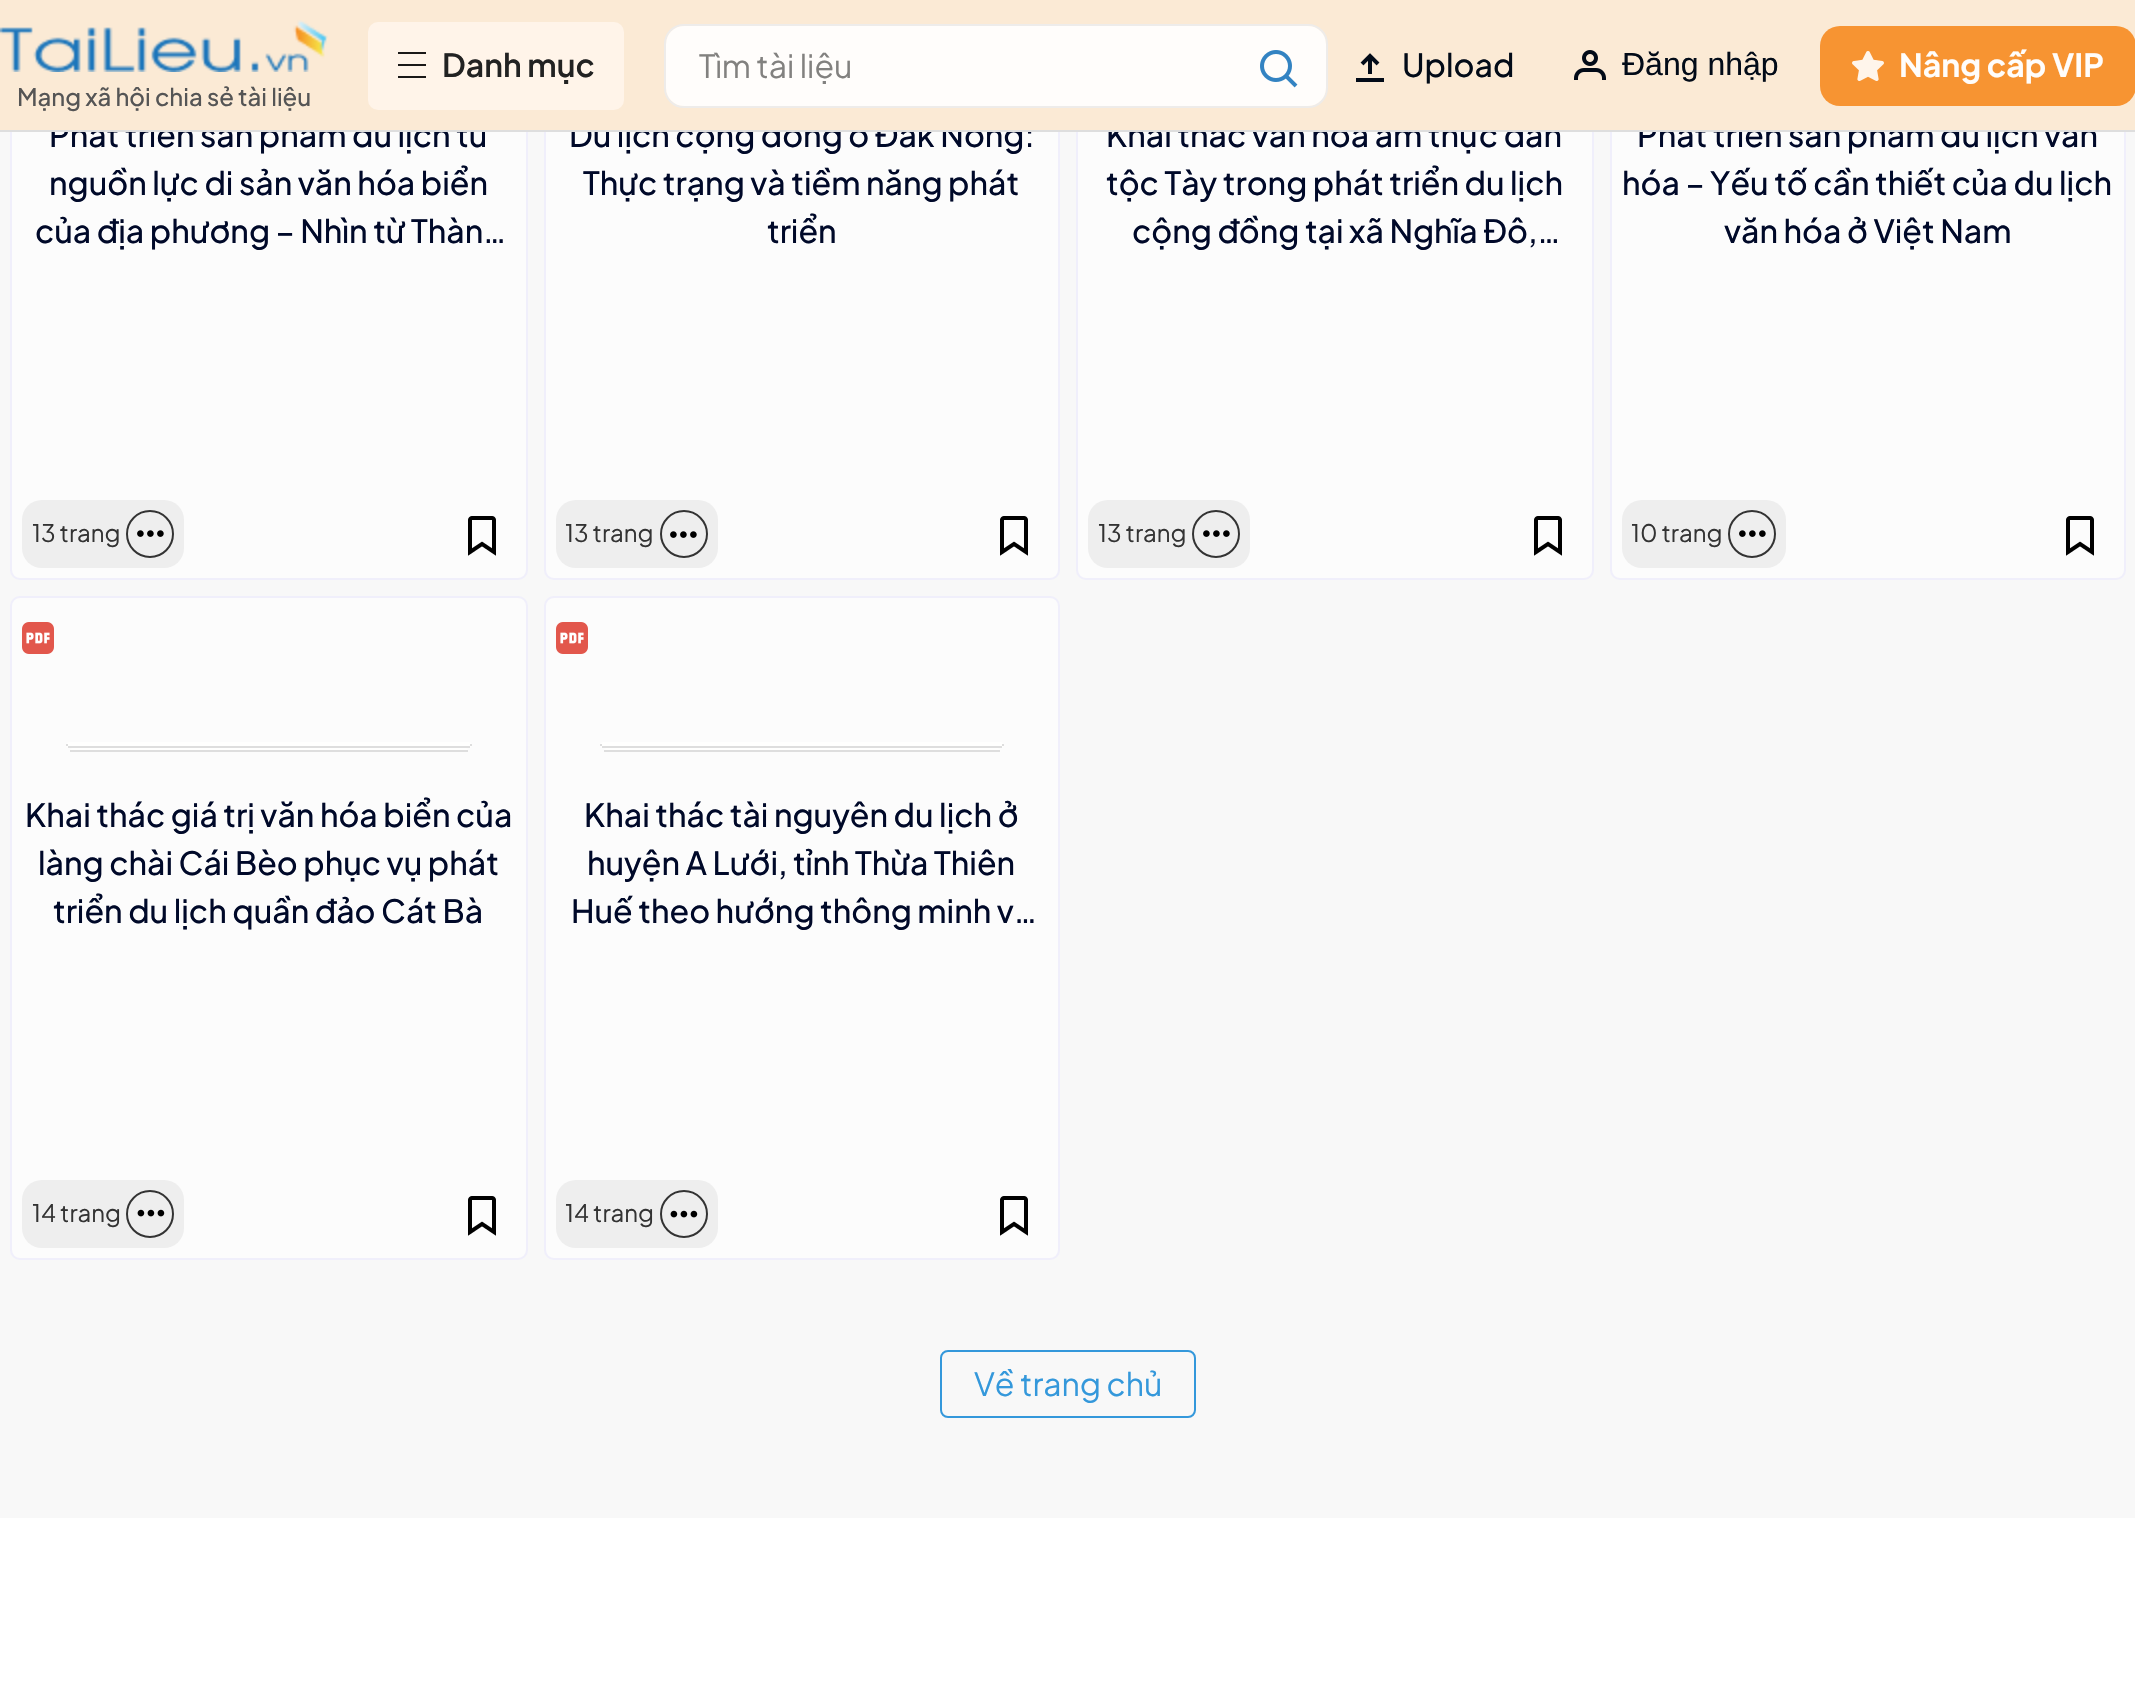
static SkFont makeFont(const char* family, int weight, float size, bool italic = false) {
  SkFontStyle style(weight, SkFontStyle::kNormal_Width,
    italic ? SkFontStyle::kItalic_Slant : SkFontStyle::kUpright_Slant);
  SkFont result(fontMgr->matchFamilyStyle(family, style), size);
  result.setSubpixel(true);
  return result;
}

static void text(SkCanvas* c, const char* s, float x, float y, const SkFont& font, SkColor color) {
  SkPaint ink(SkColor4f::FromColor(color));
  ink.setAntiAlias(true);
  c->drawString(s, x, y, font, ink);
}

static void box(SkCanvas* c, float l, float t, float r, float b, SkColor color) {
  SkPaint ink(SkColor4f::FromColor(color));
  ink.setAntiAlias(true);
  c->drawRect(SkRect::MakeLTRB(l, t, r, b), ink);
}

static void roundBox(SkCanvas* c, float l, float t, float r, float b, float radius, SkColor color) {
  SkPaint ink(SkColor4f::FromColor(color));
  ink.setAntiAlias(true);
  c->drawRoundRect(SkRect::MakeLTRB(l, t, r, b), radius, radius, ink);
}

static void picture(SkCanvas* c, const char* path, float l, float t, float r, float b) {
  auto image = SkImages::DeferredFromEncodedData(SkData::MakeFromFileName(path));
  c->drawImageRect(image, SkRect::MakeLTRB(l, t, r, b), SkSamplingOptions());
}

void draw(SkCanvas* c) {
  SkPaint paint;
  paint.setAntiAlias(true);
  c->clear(0xffffffff);
  box(c, 0, 132, 2135, 1518, 0xfff8f8f8);
  paint.setColor(0xfffcfcfc);
  c->drawRoundRect(SkRect::MakeLTRB(11, -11, 527, 579), 9, 9, paint);
  paint.setStyle(SkPaint::kStroke_Style);
  paint.setStrokeWidth(2);
  paint.setColor(0xfff0effb);
  c->drawRoundRect(SkRect::MakeLTRB(11, -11, 527, 579), 9, 9, paint);
  SkFont face1 = makeFont("Plus Jakarta Sans", 500, 32);
  text(c, "Phát triển sản phẩm du lịch từ", 49, 147, face1, 0xff000929);
  paint.setStyle(SkPaint::kFill_Style);
  paint.setColor(0xfffcfcfc);
  c->drawRoundRect(SkRect::MakeLTRB(545, -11, 1059, 579), 9, 9, paint);
  paint.setStyle(SkPaint::kStroke_Style);
  paint.setColor(0xfff0effb);
  c->drawRoundRect(SkRect::MakeLTRB(545, -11, 1059, 579), 9, 9, paint);
  text(c, "Du lịch cộng đồng ở Đắk Nông:", 569, 147, face1, 0xff000929);
  paint.setStyle(SkPaint::kFill_Style);
  paint.setColor(0xfffcfcfc);
  c->drawRoundRect(SkRect::MakeLTRB(1077, -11, 1593, 579), 9, 9, paint);
  paint.setStyle(SkPaint::kStroke_Style);
  paint.setColor(0xfff0effb);
  c->drawRoundRect(SkRect::MakeLTRB(1077, -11, 1593, 579), 9, 9, paint);
  text(c, "Khai thác văn hóa ẩm thực dân", 1106, 147, face1, 0xff000929);
  paint.setStyle(SkPaint::kFill_Style);
  paint.setColor(0xfffcfcfc);
  c->drawRoundRect(SkRect::MakeLTRB(1611, -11, 2125, 579), 9, 9, paint);
  paint.setStyle(SkPaint::kStroke_Style);
  paint.setColor(0xfff0effb);
  c->drawRoundRect(SkRect::MakeLTRB(1611, -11, 2125, 579), 9, 9, paint);
  text(c, "Phát triển sản phẩm du lịch văn", 1637, 147, face1, 0xff000929);
  box(c, 0, 0, 2135, 130, 0xfffbead5);
  box(c, 0, 130, 2135, 132, 0xffdedede);
  roundBox(c, 368, 22, 624, 110, 10, 0xfffff4e9);
  box(c, 398, 52, 426, 54, 0xff1a1817);
  box(c, 398, 64, 426, 66, 0xff1a1817);
  box(c, 398, 76, 426, 78, 0xff1a1817);
  SkFont face2 = makeFont("Plus Jakarta Sans", 600, 32);
  text(c, "Danh mục", 442, 77, face2, 0xff222222);
  paint.setColor(0xffeeecea);
  c->drawRoundRect(SkRect::MakeLTRB(665, 25, 1327, 107), 19, 19, paint);
  roundBox(c, 666, 26, 1326, 106, 18, 0xfffffdfb);
  SkFont face3 = makeFont("Plus Jakarta Sans", 400, 32);
  text(c, "Tìm tài liệu", 699, 78, face3, 0xff82817f);
  picture(c, "img_01.png", 1260, 50, 1298, 88);
  picture(c, "img_02.png", 0, 20, 328, 72);
  SkFont face4 = makeFont("Plus Jakarta Sans", 500, 24);
  text(c, "Mạng xã hội chia sẻ tài liệu", 17, 106, face4, 0xff555555);
  picture(c, "img_03.png", 1356, 53, 1384, 82);
  text(c, "Upload", 1402, 77, face1, 0xff020b18);
  picture(c, "img_04.png", 1574, 50, 1606, 80);
  SkFont face5 = makeFont("Liberation Sans", 400, 32);
  text(c, "Đăng nhập", 1622, 75, face5, 0xff020b18);
  roundBox(c, 1820, 26, 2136, 106, 20, 0xfff79432);
  picture(c, "img_05.png", 1852, 51, 1884, 81);
  SkFont face6 = makeFont("Plus Jakarta Sans", 700, 32);
  text(c, "Nâng cấp VIP", 1899, 77, face6, 0xfffffdfb);
  text(c, "nguồn lực di sản văn hóa biển", 49, 195, face1, 0xff000929);
  text(c, "của địa phương – Nhìn từ Thàn…", 35, 243, face1, 0xff000929);
  roundBox(c, 22, 500, 184, 568, 20, 0xffeeeeee);
  SkFont face7 = makeFont("Plus Jakarta Sans", 400, 24);
  text(c, "13 trang", 32, 542, face7, 0xff333333);
  paint.setColor(0xff333333);
  c->drawCircle(150, 534, 23, paint);
  picture(c, "img_06.png", 137, 530, 164, 537);
  picture(c, "img_07.png", 468, 516, 496, 556);
  text(c, "Thực trạng và tiềm năng phát", 583, 195, face1, 0xff000929);
  text(c, "triển", 767, 243, face1, 0xff000929);
  roundBox(c, 556, 500, 718, 568, 20, 0xffeeeeee);
  text(c, "13 trang", 565, 542, face7, 0xff333333);
  c->drawCircle(684, 534, 23, paint);
  picture(c, "img_06.png", 670, 531, 697, 538);
  picture(c, "img_07.png", 1000, 516, 1028, 556);
  text(c, "tộc Tày trong phát triển du lịch", 1106, 195, face1, 0xff000929);
  text(c, "cộng đồng tại xã Nghĩa Đô,…", 1132, 243, face1, 0xff000929);
  roundBox(c, 1088, 500, 1250, 568, 20, 0xffeeeeee);
  text(c, "13 trang", 1098, 542, face7, 0xff333333);
  c->drawCircle(1216, 534, 23, paint);
  picture(c, "img_06.png", 1203, 530, 1230, 537);
  picture(c, "img_07.png", 1534, 516, 1562, 556);
  text(c, "hóa – Yếu tố cần thiết của du lịch", 1622, 195, face1, 0xff000929);
  text(c, "văn hóa ở Việt Nam", 1724, 243, face1, 0xff000929);
  roundBox(c, 1622, 500, 1786, 568, 20, 0xffeeeeee);
  text(c, "10 trang", 1631, 542, face7, 0xff333333);
  c->drawCircle(1752, 534, 23, paint);
  picture(c, "img_08.png", 1739, 530, 1766, 537);
  picture(c, "img_07.png", 2066, 516, 2094, 556);
  paint.setStyle(SkPaint::kFill_Style);
  paint.setColor(0xfffcfcfc);
  c->drawRoundRect(SkRect::MakeLTRB(11, 597, 527, 1259), 9, 9, paint);
  paint.setStyle(SkPaint::kStroke_Style);
  paint.setColor(0xfff0effb);
  c->drawRoundRect(SkRect::MakeLTRB(11, 597, 527, 1259), 9, 9, paint);
  picture(c, "img_09.png", 22, 622, 54, 654);
  roundBox(c, 66, 742, 472, 748, 3, 0xfffffffe);
  box(c, 470, 744, 472, 746, 0xffdedede);
  box(c, 68, 746, 470, 748, 0xffdedede);
  box(c, 66, 744, 68, 746, 0xffdedede);
  roundBox(c, 70, 748, 468, 752, 2, 0xfffffffe);
  box(c, 70, 750, 468, 752, 0xffdedede);
  text(c, "Khai thác giá trị văn hóa biển của", 25, 827, face1, 0xff000929);
  text(c, "làng chài Cái Bèo phục vụ phát", 38, 875, face1, 0xff000929);
  text(c, "triển du lịch quần đảo Cát Bà", 53, 923, face1, 0xff000929);
  roundBox(c, 22, 1180, 184, 1248, 20, 0xffeeeeee);
  text(c, "14 trang", 32, 1222, face7, 0xff333333);
  paint.setColor(0xff333333);
  c->drawCircle(150, 1214, 23, paint);
  picture(c, "img_10.png", 137, 1209, 165, 1217);
  picture(c, "img_07.png", 468, 1196, 496, 1236);
  paint.setStyle(SkPaint::kFill_Style);
  paint.setColor(0xfffcfcfc);
  c->drawRoundRect(SkRect::MakeLTRB(545, 597, 1059, 1259), 9, 9, paint);
  paint.setStyle(SkPaint::kStroke_Style);
  paint.setColor(0xfff0effb);
  c->drawRoundRect(SkRect::MakeLTRB(545, 597, 1059, 1259), 9, 9, paint);
  picture(c, "img_09.png", 556, 622, 588, 654);
  roundBox(c, 600, 742, 1004, 748, 3, 0xfffffffe);
  box(c, 1002, 744, 1004, 746, 0xffdedede);
  box(c, 602, 746, 1002, 748, 0xffdedede);
  box(c, 600, 744, 602, 746, 0xffdedede);
  roundBox(c, 604, 748, 1000, 752, 2, 0xfffffffe);
  box(c, 604, 750, 1000, 752, 0xffdedede);
  text(c, "Khai thác tài nguyên du lịch ở", 584, 827, face1, 0xff000929);
  text(c, "huyện A Lưới, tỉnh Thừa Thiên", 587, 875, face1, 0xff000929);
  text(c, "Huế theo hướng thông minh v…", 571, 923, face1, 0xff000929);
  roundBox(c, 556, 1180, 718, 1248, 20, 0xffeeeeee);
  text(c, "14 trang", 565, 1222, face7, 0xff333333);
  paint.setColor(0xff333333);
  c->drawCircle(684, 1214, 23, paint);
  picture(c, "img_10.png", 670, 1210, 698, 1218);
  picture(c, "img_07.png", 1000, 1196, 1028, 1236);
  paint.setColor(0xff3498db);
  c->drawRoundRect(SkRect::MakeLTRB(941, 1351, 1195, 1417), 7, 7, paint);
  text(c, "Về trang chủ", 974, 1396, face3, 0xff3498db);
}
